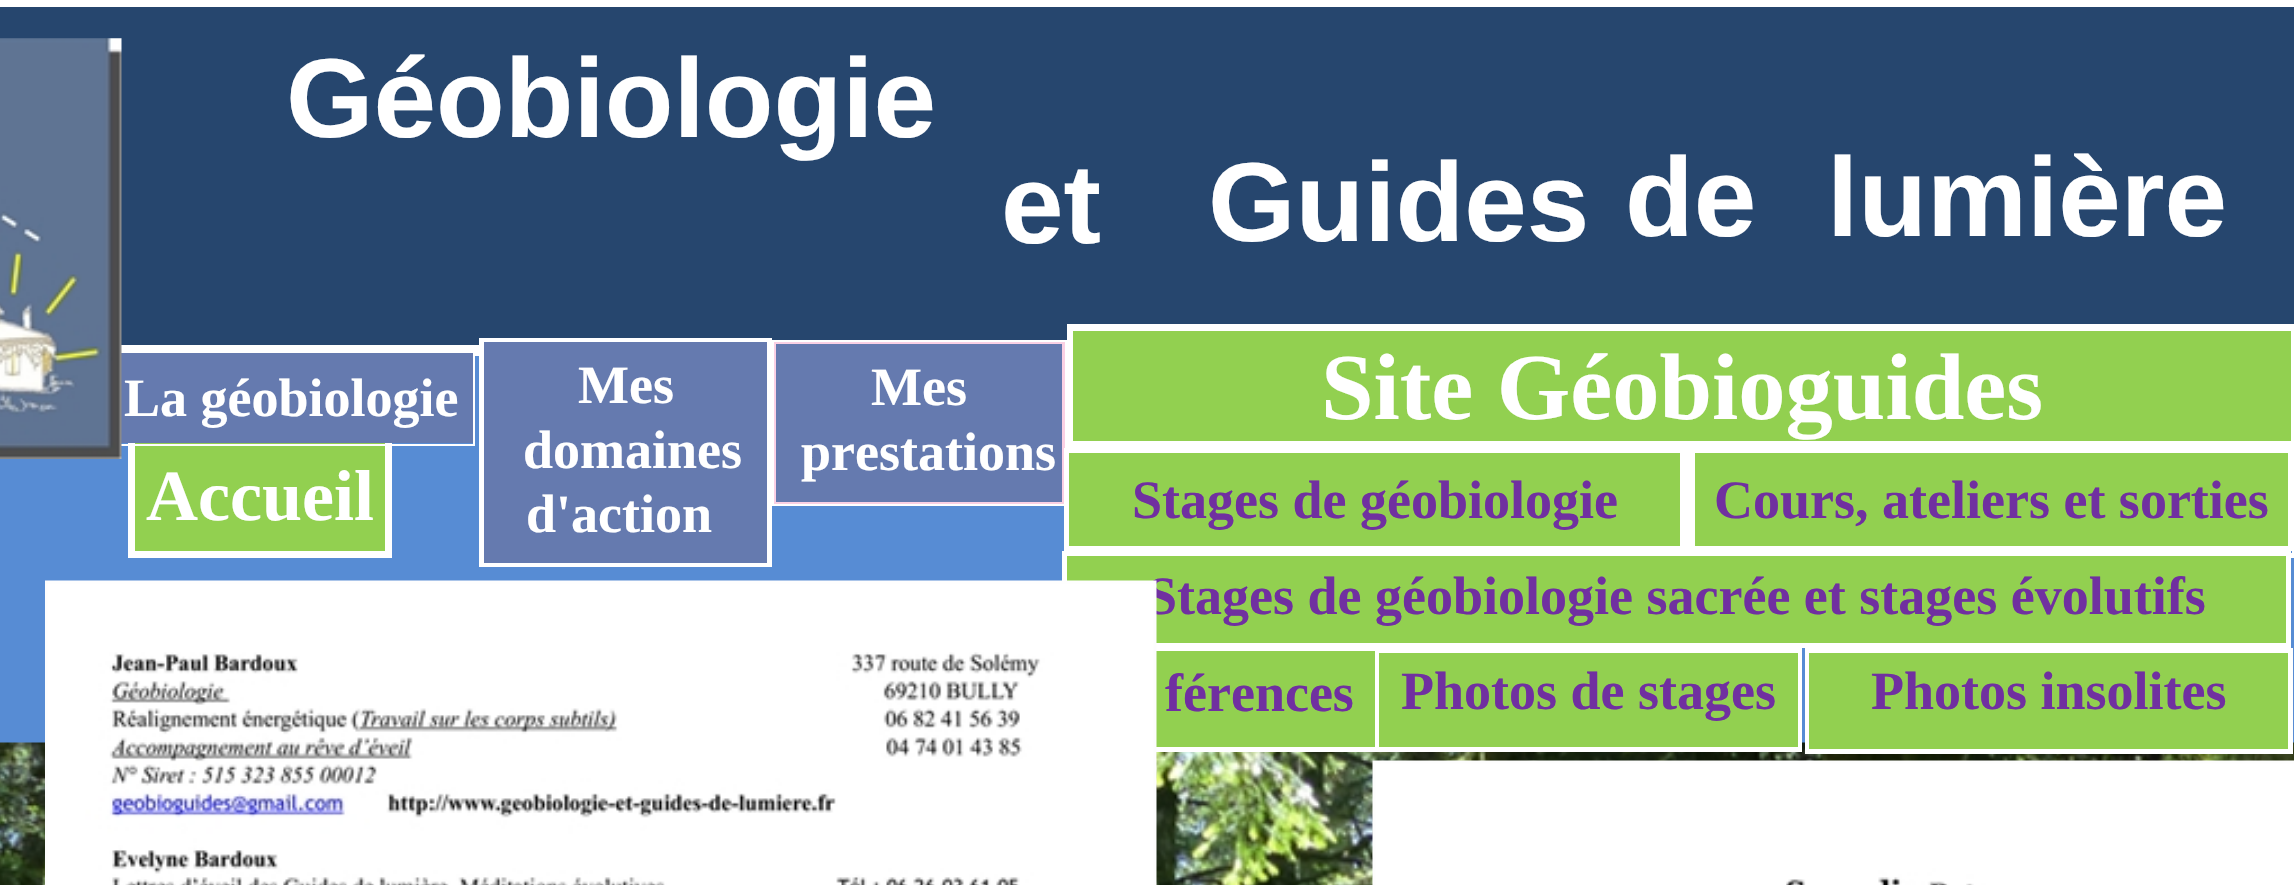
static SkFont makeFont(const char* family, int weight, float size, bool italic = false) {
  SkFontStyle style(weight, SkFontStyle::kNormal_Width,
    italic ? SkFontStyle::kItalic_Slant : SkFontStyle::kUpright_Slant);
  SkFont result(fontMgr->matchFamilyStyle(family, style), size);
  result.setSubpixel(true);
  return result;
}

static void text(SkCanvas* c, const char* s, float x, float y, const SkFont& font, SkColor color) {
  SkPaint ink(SkColor4f::FromColor(color));
  ink.setAntiAlias(true);
  c->drawString(s, x, y, font, ink);
}

static void box(SkCanvas* c, float l, float t, float r, float b, SkColor color) {
  SkPaint ink(SkColor4f::FromColor(color));
  ink.setAntiAlias(true);
  c->drawRect(SkRect::MakeLTRB(l, t, r, b), ink);
}

static void picture(SkCanvas* c, const char* path, float l, float t, float r, float b) {
  auto image = SkImages::DeferredFromEncodedData(SkData::MakeFromFileName(path));
  c->drawImageRect(image, SkRect::MakeLTRB(l, t, r, b), SkSamplingOptions());
}

void draw(SkCanvas* c) {
  SkPaint paint;
  paint.setAntiAlias(true);
  c->clear(0xff578cd4);
  paint.setColor(0xff26466e);
  c->drawRect(SkRect::MakeLTRB(-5.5f, 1.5f, 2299.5f, 350.5f), paint);
  paint.setStyle(SkPaint::kStroke_Style);
  paint.setStrokeWidth(11);
  paint.setColor(0xffffffff);
  c->drawRect(SkRect::MakeLTRB(-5.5f, 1.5f, 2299.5f, 350.5f), paint);
  paint.setStrokeWidth(7);
  c->drawRect(SkRect::MakeLTRB(131.5f, 437.5f, 388.5f, 554.5f), paint);
  box(c, 135, 443, 385, 551, 0xff92d050);
  paint.setStrokeWidth(2);
  c->drawRect(SkRect::MakeLTRB(109, 352, 474, 445), paint);
  box(c, 121, 353, 473, 443, 0xff657aaf);
  picture(c, "img_01.png", 0, 38, 122, 459);
  SkFont face1 = makeFont("Liberation Sans", 700, 112.5f);
  text(c, "Géobiologie", 286, 137, face1, 0xffffffff);
  text(c, "et", 1001, 243, face1, 0xffffffff);
  text(c, "Guides", 1208, 241, face1, 0xffffffff);
  text(c, "de", 1625, 236, face1, 0xffffffff);
  text(c, "lumière", 1827, 236, face1, 0xffffffff);
  SkFont face2 = makeFont("Liberation Serif", 700, 54);
  text(c, "La géobiologie", 124, 416, face2, 0xffffffff);
  paint.setStrokeWidth(5);
  c->drawRect(SkRect::MakeLTRB(481.5f, 340.5f, 769.5f, 564.5f), paint);
  box(c, 484, 342, 767, 563, 0xff657aaf);
  text(c, "Mes", 578, 403, face2, 0xffffffff);
  text(c, "domaines", 523, 468, face2, 0xffffffff);
  text(c, "d'action", 526, 532, face2, 0xffffffff);
  paint.setStyle(SkPaint::kFill_Style);
  paint.setColor(0xfffad0e4);
  c->drawRect(SkRect::MakeLTRB(773, 341, 1066, 505), paint);
  paint.setStyle(SkPaint::kStroke_Style);
  paint.setStrokeWidth(2);
  paint.setColor(0xffffffff);
  c->drawRect(SkRect::MakeLTRB(773, 341, 1066, 505), paint);
  box(c, 776, 344, 1062, 502, 0xff657aaf);
  text(c, "Mes", 871, 405, face2, 0xffffffff);
  text(c, "prestations", 801, 470, face2, 0xffffffff);
  paint.setStrokeWidth(5);
  c->drawRect(SkRect::MakeLTRB(1687.5f, 448.5f, 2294.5f, 555.5f), paint);
  c->drawRect(SkRect::MakeLTRB(1069.5f, 326.5f, 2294.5f, 445.5f), paint);
  paint.setStyle(SkPaint::kFill_Style);
  paint.setColor(0xff92d050);
  c->drawRect(SkRect::MakeLTRB(1072, 330, 2292, 442), paint);
  paint.setStyle(SkPaint::kStroke_Style);
  paint.setStrokeWidth(2);
  paint.setColor(0xffffffff);
  c->drawRect(SkRect::MakeLTRB(1072, 330, 2292, 442), paint);
  SkFont face3 = makeFont("Liberation Serif", 700, 94.5f);
  text(c, "Site Géobioguides", 1321, 419, face3, 0xffffffff);
  SkFont face4 = makeFont("Liberation Serif", 700, 72);
  text(c, "Accueil", 146, 520, face4, 0xffffffff);
  paint.setStyle(SkPaint::kFill_Style);
  paint.setColor(0xff92d050);
  c->drawRect(SkRect::MakeLTRB(1066.5f, 450.5f, 1682.5f, 548.5f), paint);
  paint.setStyle(SkPaint::kStroke_Style);
  paint.setStrokeWidth(5);
  paint.setColor(0xffffffff);
  c->drawRect(SkRect::MakeLTRB(1066.5f, 450.5f, 1682.5f, 548.5f), paint);
  text(c, "Stages de géobiologie", 1132, 518, face2, 0xff7030a0);
  paint.setStyle(SkPaint::kFill_Style);
  paint.setColor(0xff92d050);
  c->drawRect(SkRect::MakeLTRB(1692.5f, 450.5f, 2290.5f, 548.5f), paint);
  paint.setStyle(SkPaint::kStroke_Style);
  paint.setColor(0xffffffff);
  c->drawRect(SkRect::MakeLTRB(1692.5f, 450.5f, 2290.5f, 548.5f), paint);
  text(c, "Cours, ateliers et sorties", 1714, 518, face2, 0xff7030a0);
  picture(c, "img_03.png", 0, 742, 2294, 885);
  box(c, 1156, 651, 1375, 747, 0xff92d050);
  c->drawRect(SkRect::MakeLTRB(1066.5f, 648.5f, 1381.5f, 749.5f), paint);
  paint.setStyle(SkPaint::kFill_Style);
  paint.setColor(0xff92d050);
  c->drawRect(SkRect::MakeLTRB(1064.5f, 553.5f, 2288.5f, 645.5f), paint);
  paint.setStyle(SkPaint::kStroke_Style);
  paint.setColor(0xffffffff);
  c->drawRect(SkRect::MakeLTRB(1064.5f, 553.5f, 2288.5f, 645.5f), paint);
  text(c, "Stages de géobiologie sacrée et stages évolutifs", 1147, 614, face2, 0xff7030a0);
  picture(c, "img_02.png", 45, 580, 1157, 885);
  text(c, "férences", 1165, 711, face2, 0xff7030a0);
  c->drawRect(SkRect::MakeLTRB(1377.5f, 650.5f, 1799.5f, 749.5f), paint);
  box(c, 1379, 653, 1798, 747, 0xff92d050);
  text(c, "Photos de stages", 1401, 709, face2, 0xff7030a0);
  c->drawRect(SkRect::MakeLTRB(1807.5f, 650.5f, 2290.5f, 751.5f), paint);
  box(c, 1809, 653, 2288, 749, 0xff92d050);
  text(c, "Photos insolites", 1871, 709, face2, 0xff7030a0);
  picture(c, "img_04.png", 1372, 760, 2294, 885);
}
